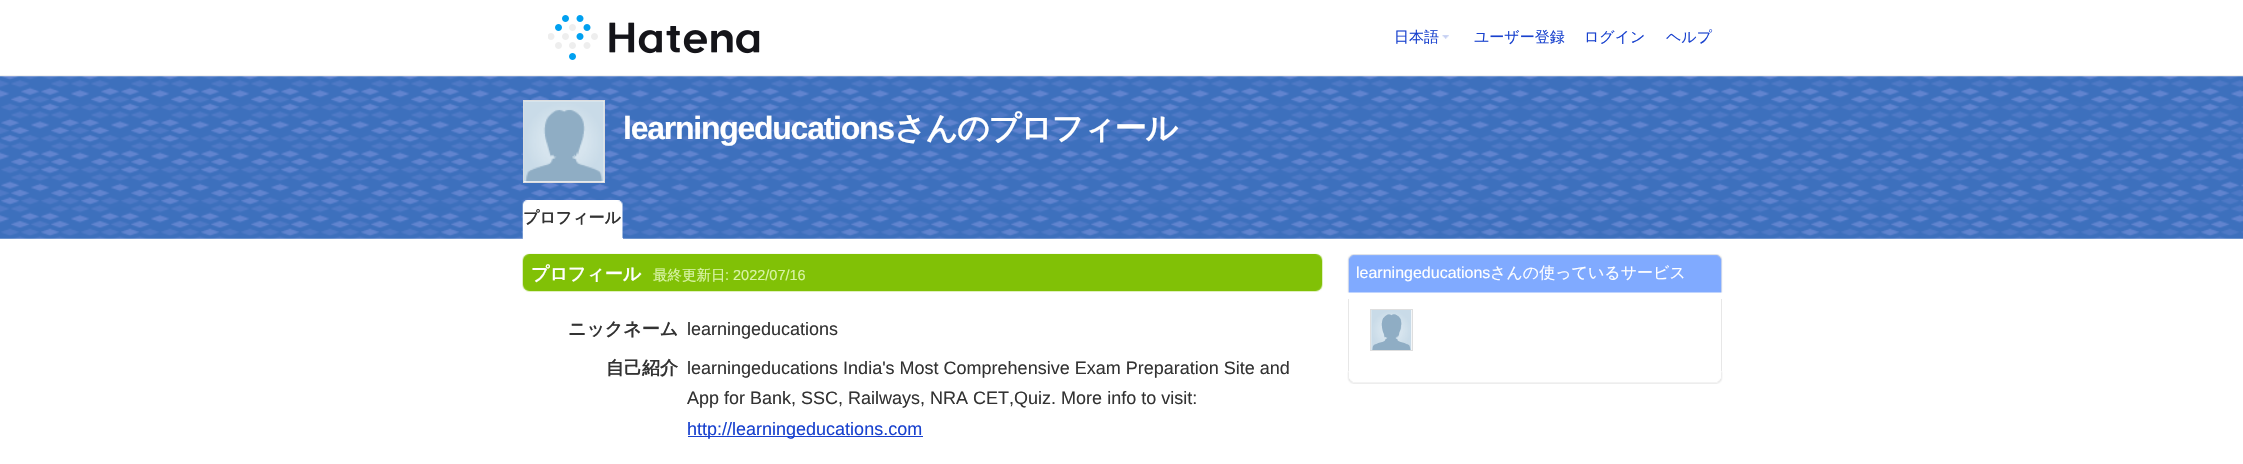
static SkFont makeFont(const char* family, int weight, float size, bool italic = false) {
  SkFontStyle style(weight, SkFontStyle::kNormal_Width,
    italic ? SkFontStyle::kItalic_Slant : SkFontStyle::kUpright_Slant);
  SkFont result(fontMgr->matchFamilyStyle(family, style), size);
  result.setSubpixel(true);
  return result;
}

static void text(SkCanvas* c, const char* s, float x, float y, const SkFont& font, SkColor color) {
  SkPaint ink(SkColor4f::FromColor(color));
  ink.setAntiAlias(true);
  c->drawString(s, x, y, font, ink);
}

static void spacedText(SkCanvas* c, const char* s, float x, float y, const SkFont& font, const SkPaint& ink, float letter, float word) {
  std::vector<SkGlyphID> glyphs(font.countText(s, strlen(s), SkTextEncoding::kUTF8));
  std::vector<float> xs(glyphs.size());
  font.textToGlyphs(s, strlen(s), SkTextEncoding::kUTF8, glyphs);
  font.getXPos(glyphs, xs, x);
  float extra = 0;
  for (size_t i = 0; i < glyphs.size(); i++) {
    xs[i] += extra;
    extra += letter + word * (glyphs[i] == font.unicharToGlyph(' '));
  }
  c->drawTextBlob(SkTextBlob::MakeFromPosHGlyphs(glyphs, xs, y, font), 0, 0, ink);
}

static void box(SkCanvas* c, float l, float t, float r, float b, SkColor color) {
  SkPaint ink(SkColor4f::FromColor(color));
  ink.setAntiAlias(true);
  c->drawRect(SkRect::MakeLTRB(l, t, r, b), ink);
}

static void picture(SkCanvas* c, const char* path, float l, float t, float r, float b) {
  auto image = SkImages::DeferredFromEncodedData(SkData::MakeFromFileName(path));
  c->drawImageRect(image, SkRect::MakeLTRB(l, t, r, b), SkSamplingOptions());
}

void draw(SkCanvas* c) {
  SkPaint paint;
  paint.setAntiAlias(true);
  c->clear(0xffffffff);
  box(c, 0, 75, 2243, 76, 0xfff0f0f0);
  picture(c, "img_01.png", 548, 15, 760, 60);
  picture(c, "img_02.png", 1442, 35, 1449, 39);
  SkFont face1 = makeFont("WenQuanYi Zen Hei", 500, 15);
  text(c, "日本語", 1394, 42, face1, 0xff1841ce);
  text(c, "ユーザー登録", 1474, 42, face1, 0xff1841ce);
  text(c, "ログイン", 1584, 42, face1, 0xff1841ce);
  text(c, "ヘルプ", 1666, 42, face1, 0xff1841ce);
  picture(c, "img_03.png", 0, 76, 2243, 239);
  paint.setColor(0xffffffff);
  c->drawRect(SkRect::MakeLTRB(523.5f, 100.5f, 604.5f, 182.5f), paint);
  paint.setStyle(SkPaint::kStroke_Style);
  paint.setStrokeWidth(1);
  paint.setColor(0xffdedede);
  c->drawRect(SkRect::MakeLTRB(523.5f, 100.5f, 604.5f, 182.5f), paint);
  picture(c, "img_04.png", 523, 101, 604, 182);
  SkFont face2 = makeFont("Liberation Sans", 700, 32);
  paint.setStyle(SkPaint::kFill_Style);
  paint.setColor(0xffffffff);
  spacedText(c, "learningeducations", 623, 139, face2, paint, -1.25f, 0);
  SkFont face3 = makeFont("WenQuanYi Zen Hei", 700, 32);
  spacedText(c, "さんのプロフィール", 894, 139, face3, paint, -1.25f, 0);
  picture(c, "img_05.png", 522, 200, 623, 239);
  box(c, 523, 238, 623, 239, 0xffffffff);
  SkFont face4 = makeFont("WenQuanYi Zen Hei", 700, 16);
  text(c, "プロフィール", 523, 223, face4, 0xff333333);
  picture(c, "img_06.png", 522, 253, 1323, 292);
  SkFont face5 = makeFont("WenQuanYi Zen Hei", 700, 18);
  text(c, "プロフィール", 531, 280, face5, 0xffffffff);
  SkFont face6 = makeFont("WenQuanYi Zen Hei", 500, 14.5f);
  text(c, "最終更新日", 653, 280, face6, 0xffd9f4a6);
  SkFont face7 = makeFont("Liberation Sans", 400, 14.5f);
  text(c, ": 2022/07/16", 725, 280, face7, 0xffd9f4a6);
  text(c, "ニックネーム", 568, 335, face5, 0xff333333);
  SkFont face8 = makeFont("Liberation Sans", 400, 18);
  text(c, "learningeducations", 687, 335, face8, 0xff333333);
  text(c, "自己紹介", 606, 374, face5, 0xff333333);
  text(c, "learningeducations India's Most Comprehensive Exam Preparation Site and", 687, 374, face8, 0xff333333);
  text(c, "App for Bank, SSC, Railways, NRA CET,Quiz. More info to visit:", 687, 404, face8, 0xff333333);
  box(c, 688, 436, 923, 437, 0xff1841ce);
  text(c, "http://learningeducations.com", 687, 435, face8, 0xff1841ce);
  picture(c, "img_07.png", 1347, 371, 1723, 384);
  picture(c, "img_08.png", 1347, 254, 1723, 293);
  SkFont face9 = makeFont("Liberation Sans", 400, 16);
  text(c, "learningeducations", 1356, 278, face9, 0xffffffff);
  SkFont face10 = makeFont("WenQuanYi Zen Hei", 500, 16);
  text(c, "さんの使っているサービス", 1490, 278, face10, 0xffffffff);
  box(c, 1721, 299, 1722, 371, 0xffe7e7e7);
  box(c, 1348, 299, 1349, 371, 0xffe7e7e7);
  paint.setStyle(SkPaint::kStroke_Style);
  paint.setColor(0xffdedede);
  c->drawRect(SkRect::MakeLTRB(1370.5f, 309.5f, 1412.5f, 350.5f), paint);
  picture(c, "img_09.png", 1371, 310, 1412, 350);
}
